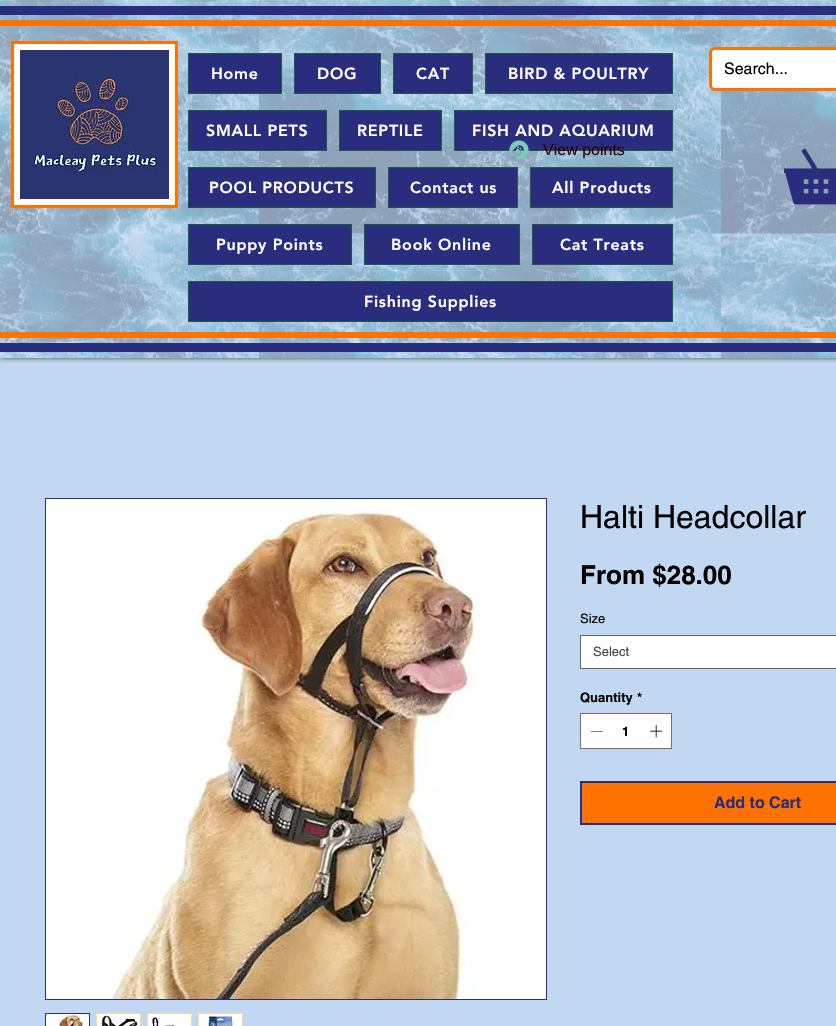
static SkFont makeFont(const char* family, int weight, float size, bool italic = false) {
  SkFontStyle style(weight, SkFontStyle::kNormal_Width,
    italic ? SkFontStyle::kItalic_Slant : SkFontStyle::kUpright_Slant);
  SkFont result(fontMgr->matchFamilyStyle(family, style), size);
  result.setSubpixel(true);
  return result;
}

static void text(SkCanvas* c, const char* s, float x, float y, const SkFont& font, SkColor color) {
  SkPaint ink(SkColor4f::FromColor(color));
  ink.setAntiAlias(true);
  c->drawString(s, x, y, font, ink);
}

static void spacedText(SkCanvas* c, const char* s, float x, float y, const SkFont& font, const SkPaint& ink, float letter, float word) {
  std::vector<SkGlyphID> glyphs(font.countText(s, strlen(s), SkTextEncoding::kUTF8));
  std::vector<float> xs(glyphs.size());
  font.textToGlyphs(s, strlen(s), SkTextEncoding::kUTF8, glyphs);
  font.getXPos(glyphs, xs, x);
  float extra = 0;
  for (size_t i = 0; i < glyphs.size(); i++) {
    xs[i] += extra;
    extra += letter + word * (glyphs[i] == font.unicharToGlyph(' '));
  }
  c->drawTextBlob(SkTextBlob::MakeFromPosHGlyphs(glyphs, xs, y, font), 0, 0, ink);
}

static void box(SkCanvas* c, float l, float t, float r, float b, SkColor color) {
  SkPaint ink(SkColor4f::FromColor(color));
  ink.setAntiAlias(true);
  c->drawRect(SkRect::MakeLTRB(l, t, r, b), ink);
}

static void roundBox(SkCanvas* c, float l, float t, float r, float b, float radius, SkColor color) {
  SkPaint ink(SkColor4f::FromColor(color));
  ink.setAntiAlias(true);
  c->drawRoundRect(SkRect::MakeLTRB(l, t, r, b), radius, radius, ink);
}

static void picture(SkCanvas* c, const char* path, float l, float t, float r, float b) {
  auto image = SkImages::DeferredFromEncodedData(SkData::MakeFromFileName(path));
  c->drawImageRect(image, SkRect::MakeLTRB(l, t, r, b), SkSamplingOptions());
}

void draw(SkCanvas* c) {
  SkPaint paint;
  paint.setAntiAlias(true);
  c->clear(0xffffffff);
  picture(c, "img_01.png", 0, 0, 836, 358);
  box(c, 0, 358, 836, 1026, 0xffc2d8f2);
  c->save();
  c->clipRect(SkRect::MakeLTRB(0, 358, 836, 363));
  paint.setColor(0xb3000000);
  paint.setMaskFilter(SkMaskFilter::MakeBlur(kNormal_SkBlurStyle, 2.5f));
  c->drawRect(SkRect::MakeLTRB(0, 0, 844, 358), paint);
  paint.setMaskFilter(nullptr);
  c->restore();
  box(c, 0, 0, 836, 358, 0x85c2d8f2);
  box(c, 0, 6, 836, 15, 0xff2a2c7e);
  box(c, 0, 343, 836, 352, 0xff2a2c7e);
  box(c, 0, 20, 836, 26, 0xffff7200);
  box(c, 0, 332, 836, 338, 0xffff7200);
  paint.setColor(0xffffffff);
  c->drawRect(SkRect::MakeLTRB(12.5f, 42.5f, 176.5f, 206.5f), paint);
  paint.setStyle(SkPaint::kStroke_Style);
  paint.setStrokeWidth(3);
  paint.setColor(0xffff7200);
  c->drawRect(SkRect::MakeLTRB(12.5f, 42.5f, 176.5f, 206.5f), paint);
  picture(c, "img_02.png", 20, 50, 169, 199);
  paint.setStyle(SkPaint::kFill_Style);
  paint.setColor(0xff2a2c7e);
  c->drawRect(SkRect::MakeLTRB(188.5f, 53.5f, 281.5f, 93.5f), paint);
  paint.setStyle(SkPaint::kStroke_Style);
  paint.setStrokeWidth(1);
  paint.setColor(0xff1b5b3f);
  c->drawRect(SkRect::MakeLTRB(188.5f, 53.5f, 281.5f, 93.5f), paint);
  SkFont face1 = makeFont("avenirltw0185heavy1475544", 900, 16);
  paint.setStyle(SkPaint::kFill_Style);
  paint.setColor(0xffffffff);
  spacedText(c, "Home", 211, 79, face1, paint, 0.75f, 0);
  paint.setColor(0xff2a2c7e);
  c->drawRect(SkRect::MakeLTRB(294.5f, 53.5f, 380.5f, 93.5f), paint);
  paint.setStyle(SkPaint::kStroke_Style);
  paint.setColor(0xff1b5b3f);
  c->drawRect(SkRect::MakeLTRB(294.5f, 53.5f, 380.5f, 93.5f), paint);
  paint.setStyle(SkPaint::kFill_Style);
  paint.setColor(0xffffffff);
  spacedText(c, "DOG", 317, 79, face1, paint, 0.75f, 0);
  paint.setColor(0xff2a2c7e);
  c->drawRect(SkRect::MakeLTRB(393.5f, 53.5f, 472.5f, 93.5f), paint);
  paint.setStyle(SkPaint::kStroke_Style);
  paint.setColor(0xff1b5b3f);
  c->drawRect(SkRect::MakeLTRB(393.5f, 53.5f, 472.5f, 93.5f), paint);
  paint.setStyle(SkPaint::kFill_Style);
  paint.setColor(0xffffffff);
  spacedText(c, "CAT", 416, 79, face1, paint, 0.75f, 0);
  paint.setColor(0xff2a2c7e);
  c->drawRect(SkRect::MakeLTRB(485.5f, 53.5f, 672.5f, 93.5f), paint);
  paint.setStyle(SkPaint::kStroke_Style);
  paint.setColor(0xff1b5b3f);
  c->drawRect(SkRect::MakeLTRB(485.5f, 53.5f, 672.5f, 93.5f), paint);
  paint.setStyle(SkPaint::kFill_Style);
  paint.setColor(0xffffffff);
  spacedText(c, "BIRD & POULTRY", 508, 79, face1, paint, 0.75f, 0);
  paint.setColor(0xff2a2c7e);
  c->drawRect(SkRect::MakeLTRB(188.5f, 110.5f, 326.5f, 150.5f), paint);
  paint.setStyle(SkPaint::kStroke_Style);
  paint.setColor(0xff1b5b3f);
  c->drawRect(SkRect::MakeLTRB(188.5f, 110.5f, 326.5f, 150.5f), paint);
  paint.setStyle(SkPaint::kFill_Style);
  paint.setColor(0xffffffff);
  spacedText(c, "SMALL PETS", 206, 136, face1, paint, 0.75f, 0);
  paint.setColor(0xff2a2c7e);
  c->drawRect(SkRect::MakeLTRB(339.5f, 110.5f, 441.5f, 150.5f), paint);
  paint.setStyle(SkPaint::kStroke_Style);
  paint.setColor(0xff1b5b3f);
  c->drawRect(SkRect::MakeLTRB(339.5f, 110.5f, 441.5f, 150.5f), paint);
  paint.setStyle(SkPaint::kFill_Style);
  paint.setColor(0xffffffff);
  spacedText(c, "REPTILE", 357, 136, face1, paint, 0.75f, 0);
  paint.setColor(0xff2a2c7e);
  c->drawRect(SkRect::MakeLTRB(454.5f, 110.5f, 672.5f, 150.5f), paint);
  paint.setStyle(SkPaint::kStroke_Style);
  paint.setColor(0xff1b5b3f);
  c->drawRect(SkRect::MakeLTRB(454.5f, 110.5f, 672.5f, 150.5f), paint);
  paint.setStyle(SkPaint::kFill_Style);
  paint.setColor(0xffffffff);
  spacedText(c, "FISH AND AQUARIUM", 472, 136, face1, paint, 0.75f, 0);
  paint.setColor(0xff2a2c7e);
  c->drawRect(SkRect::MakeLTRB(188.5f, 167.5f, 375.5f, 207.5f), paint);
  paint.setStyle(SkPaint::kStroke_Style);
  paint.setColor(0xff1b5b3f);
  c->drawRect(SkRect::MakeLTRB(188.5f, 167.5f, 375.5f, 207.5f), paint);
  paint.setStyle(SkPaint::kFill_Style);
  paint.setColor(0xffffffff);
  spacedText(c, "POOL PRODUCTS", 209, 193, face1, paint, 0.75f, 0);
  paint.setColor(0xff2a2c7e);
  c->drawRect(SkRect::MakeLTRB(388.5f, 167.5f, 517.5f, 207.5f), paint);
  paint.setStyle(SkPaint::kStroke_Style);
  paint.setColor(0xff1b5b3f);
  c->drawRect(SkRect::MakeLTRB(388.5f, 167.5f, 517.5f, 207.5f), paint);
  paint.setStyle(SkPaint::kFill_Style);
  paint.setColor(0xffffffff);
  spacedText(c, "Contact us", 410, 193, face1, paint, 0.75f, 0);
  paint.setColor(0xff2a2c7e);
  c->drawRect(SkRect::MakeLTRB(530.5f, 167.5f, 672.5f, 207.5f), paint);
  paint.setStyle(SkPaint::kStroke_Style);
  paint.setColor(0xff1b5b3f);
  c->drawRect(SkRect::MakeLTRB(530.5f, 167.5f, 672.5f, 207.5f), paint);
  paint.setStyle(SkPaint::kFill_Style);
  paint.setColor(0xffffffff);
  spacedText(c, "All Products", 552, 193, face1, paint, 0.75f, 0);
  paint.setColor(0xff2a2c7e);
  c->drawRect(SkRect::MakeLTRB(188.5f, 224.5f, 351.5f, 264.5f), paint);
  paint.setStyle(SkPaint::kStroke_Style);
  paint.setColor(0xff1b5b3f);
  c->drawRect(SkRect::MakeLTRB(188.5f, 224.5f, 351.5f, 264.5f), paint);
  paint.setStyle(SkPaint::kFill_Style);
  paint.setColor(0xffffffff);
  spacedText(c, "Puppy Points", 216, 250, face1, paint, 0.75f, 0);
  paint.setColor(0xff2a2c7e);
  c->drawRect(SkRect::MakeLTRB(364.5f, 224.5f, 519.5f, 264.5f), paint);
  paint.setStyle(SkPaint::kStroke_Style);
  paint.setColor(0xff1b5b3f);
  c->drawRect(SkRect::MakeLTRB(364.5f, 224.5f, 519.5f, 264.5f), paint);
  paint.setStyle(SkPaint::kFill_Style);
  paint.setColor(0xffffffff);
  spacedText(c, "Book Online", 391, 250, face1, paint, 0.75f, 0);
  paint.setColor(0xff2a2c7e);
  c->drawRect(SkRect::MakeLTRB(532.5f, 224.5f, 672.5f, 264.5f), paint);
  paint.setStyle(SkPaint::kStroke_Style);
  paint.setColor(0xff1b5b3f);
  c->drawRect(SkRect::MakeLTRB(532.5f, 224.5f, 672.5f, 264.5f), paint);
  paint.setStyle(SkPaint::kFill_Style);
  paint.setColor(0xffffffff);
  spacedText(c, "Cat Treats", 560, 250, face1, paint, 0.75f, 0);
  paint.setColor(0xff2a2c7e);
  c->drawRect(SkRect::MakeLTRB(188.5f, 281.5f, 672.5f, 321.5f), paint);
  paint.setStyle(SkPaint::kStroke_Style);
  paint.setColor(0xff1b5b3f);
  c->drawRect(SkRect::MakeLTRB(188.5f, 281.5f, 672.5f, 321.5f), paint);
  paint.setStyle(SkPaint::kFill_Style);
  paint.setColor(0xffffffff);
  spacedText(c, "Fishing Supplies", 364, 307, face1, paint, 0.75f, 0);
  paint.setStyle(SkPaint::kStroke_Style);
  paint.setStrokeWidth(3);
  paint.setColor(0xffff7200);
  c->drawRoundRect(SkRect::MakeLTRB(710.5f, 48.5f, 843.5f, 89.5f), 4.5f, 4.5f, paint);
  roundBox(c, 712, 50, 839, 88, 3, 0xffffffff);
  SkFont face2 = makeFont("helvetica", 400, 16);
  text(c, "Search...", 724, 74, face2, 0xff000000);
  picture(c, "img_03.png", 509, 140, 529, 160);
  SkFont face3 = makeFont("Liberation Sans", 400, 16);
  text(c, "View points", 543, 155, face3, 0xff310000);
  picture(c, "img_04.png", 784, 148, 836, 205);
  paint.setStrokeWidth(1);
  paint.setColor(0xff2a2c7e);
  c->drawRect(SkRect::MakeLTRB(45.5f, 498.5f, 546.5f, 999.5f), paint);
  picture(c, "img_05.png", 46, 499, 546, 999);
  c->drawRect(SkRect::MakeLTRB(45.5f, 1013.5f, 89.5f, 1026.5f), paint);
  picture(c, "img_06.png", 46, 1014, 89, 1026);
  paint.setColor(0xffffdb90);
  c->drawRect(SkRect::MakeLTRB(96.5f, 1013.5f, 140.5f, 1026.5f), paint);
  picture(c, "img_07.png", 97, 1014, 140, 1026);
  c->drawRect(SkRect::MakeLTRB(147.5f, 1013.5f, 191.5f, 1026.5f), paint);
  picture(c, "img_08.png", 148, 1014, 191, 1026);
  c->drawRect(SkRect::MakeLTRB(198.5f, 1013.5f, 242.5f, 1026.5f), paint);
  picture(c, "img_09.png", 199, 1014, 242, 1026);
  SkFont face4 = makeFont("helvetica", 400, 32);
  text(c, "Halti Headcollar", 580, 528, face4, 0xff000000);
  SkFont face5 = makeFont("helvetica", 700, 26);
  text(c, "From $28.00", 580, 584, face5, 0xff000000);
  SkFont face6 = makeFont("helvetica", 400, 13);
  text(c, "Size", 580, 623, face6, 0xff000000);
  paint.setStyle(SkPaint::kFill_Style);
  paint.setColor(0xffffffff);
  c->drawRect(SkRect::MakeLTRB(580.5f, 635.5f, 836.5f, 668.5f), paint);
  paint.setStyle(SkPaint::kStroke_Style);
  paint.setColor(0xff666666);
  c->drawRect(SkRect::MakeLTRB(580.5f, 635.5f, 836.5f, 668.5f), paint);
  text(c, "Select", 593, 656, face6, 0xff444444);
  SkFont face7 = makeFont("helvetica", 700, 13);
  text(c, "Quantity", 580, 702, face7, 0xff000000);
  text(c, "*", 637, 702, face7, 0xff000000);
  paint.setStyle(SkPaint::kFill_Style);
  paint.setColor(0xffffffff);
  c->drawRect(SkRect::MakeLTRB(580.5f, 713.5f, 671.5f, 748.5f), paint);
  paint.setStyle(SkPaint::kStroke_Style);
  paint.setColor(0xff836666);
  c->drawRect(SkRect::MakeLTRB(580.5f, 713.5f, 671.5f, 748.5f), paint);
  paint.setStyle(SkPaint::kFill_Style);
  paint.setColor(0xff000000);
  c->drawPath(SkPathBuilder(SkPathFillType::kEvenOdd).moveTo(603, 731).lineTo(603, 731.5f).lineTo(591, 731.5f).lineTo(591, 731).close().detach(), paint);
  text(c, "1", 622, 736, face7, 0xff000000);
  picture(c, "img_10.png", 650, 725, 663, 738);
  paint.setColor(0xffff7200);
  c->drawRect(SkRect::MakeLTRB(581, 782, 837, 824), paint);
  paint.setStyle(SkPaint::kStroke_Style);
  paint.setStrokeWidth(2);
  paint.setColor(0xff2a2c7e);
  c->drawRect(SkRect::MakeLTRB(581, 782, 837, 824), paint);
  SkFont face8 = makeFont("helvetica", 700, 16);
  text(c, "Add to Cart", 714, 808, face8, 0xff2a2c7e);
}
